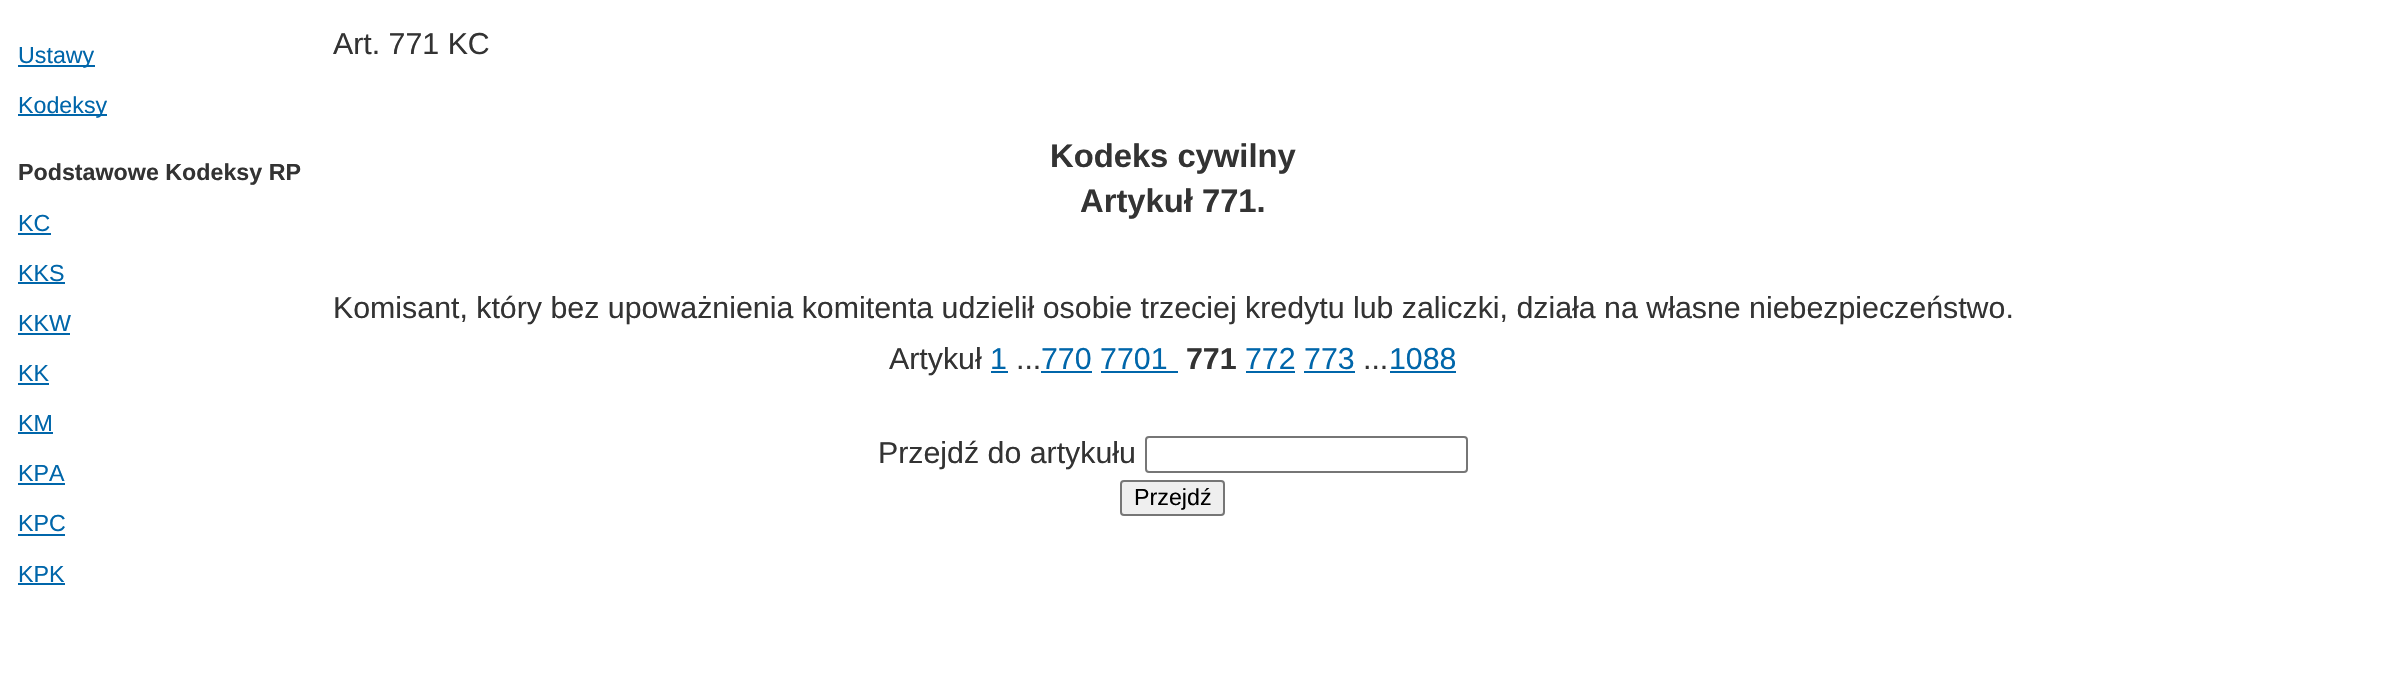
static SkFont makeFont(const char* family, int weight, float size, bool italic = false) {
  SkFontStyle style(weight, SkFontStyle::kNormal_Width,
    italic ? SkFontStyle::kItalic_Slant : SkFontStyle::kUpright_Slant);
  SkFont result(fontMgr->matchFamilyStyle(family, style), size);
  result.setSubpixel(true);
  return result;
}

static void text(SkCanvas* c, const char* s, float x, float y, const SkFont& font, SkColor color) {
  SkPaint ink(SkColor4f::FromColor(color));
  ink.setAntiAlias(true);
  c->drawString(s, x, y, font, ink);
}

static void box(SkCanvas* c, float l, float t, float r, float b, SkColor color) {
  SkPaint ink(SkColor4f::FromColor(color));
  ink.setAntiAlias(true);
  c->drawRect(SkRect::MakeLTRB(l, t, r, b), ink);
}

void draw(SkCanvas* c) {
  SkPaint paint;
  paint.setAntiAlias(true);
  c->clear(0xffffffff);
  box(c, 18, 65, 95, 67, 0xff0066aa);
  SkFont face1 = makeFont("Liberation Sans", 400, 23.25f);
  text(c, "Ustawy", 18, 63, face1, 0xff0066aa);
  box(c, 18, 114, 107, 116, 0xff0066aa);
  text(c, "Kodeksy", 18, 113, face1, 0xff0066aa);
  SkFont face2 = makeFont("Liberation Sans", 700, 23.25f);
  text(c, "Podstawowe Kodeksy RP", 18, 180, face2, 0xff333333);
  text(c, "KC", 18, 231, face1, 0xff0066aa);
  box(c, 18, 233, 51, 235, 0xff0066aa);
  text(c, "KKS", 18, 281, face1, 0xff0066aa);
  box(c, 18, 282, 65, 284, 0xff0066aa);
  text(c, "KKW", 18, 331, face1, 0xff0066aa);
  box(c, 18, 333, 70, 335, 0xff0066aa);
  text(c, "KK", 18, 381, face1, 0xff0066aa);
  box(c, 18, 383, 49, 385, 0xff0066aa);
  text(c, "KM", 18, 431, face1, 0xff0066aa);
  box(c, 18, 432, 53, 434, 0xff0066aa);
  text(c, "KPA", 18, 481, face1, 0xff0066aa);
  box(c, 18, 483, 65, 485, 0xff0066aa);
  text(c, "KPC", 18, 531, face1, 0xff0066aa);
  box(c, 18, 534, 65, 536, 0xff0066aa);
  text(c, "KPK", 18, 582, face1, 0xff0066aa);
  box(c, 18, 583, 65, 585, 0xff0066aa);
  SkFont face3 = makeFont("Liberation Sans", 400, 30.33f);
  text(c, "Art. 771 KC", 333, 54, face3, 0xff333333);
  SkFont face4 = makeFont("Liberation Sans", 700, 32.75f);
  text(c, "Kodeks cywilny", 1050, 167, face4, 0xff333333);
  text(c, "Artykuł 771.", 1080, 212, face4, 0xff333333);
  text(c, "Komisant, który bez upoważnienia komitenta udzielił osobie trzeciej kredytu lub zaliczki, działa na własne niebezpieczeństwo.", 333, 318, face3, 0xff333333);
  text(c, "Artykuł", 889, 369, face3, 0xff333333);
  text(c, "1", 990, 369, face3, 0xff0066aa);
  box(c, 991, 371, 1008, 373, 0xff0066aa);
  text(c, "...", 1016, 369, face3, 0xff333333);
  text(c, "770 770‑1", 1041, 369, face3, 0xff0066aa);
  box(c, 1041, 371, 1092, 373, 0xff0066aa);
  SkFont face5 = makeFont("Liberation Sans", 700, 30.33f);
  text(c, "771", 1186, 369, face5, 0xff333333);
  text(c, "772 773", 1245, 369, face3, 0xff0066aa);
  box(c, 1246, 371, 1295, 373, 0xff0066aa);
  text(c, "...", 1363, 369, face3, 0xff333333);
  text(c, "1088", 1389, 369, face3, 0xff0066aa);
  box(c, 1390, 371, 1456, 373, 0xff0066aa);
  box(c, 1101, 371, 1178, 373, 0xff0066aa);
  box(c, 1304, 371, 1355, 373, 0xff0066aa);
  text(c, "Przejdź do artykułu", 878, 463, face3, 0xff333333);
  paint.setStyle(SkPaint::kStroke_Style);
  paint.setStrokeWidth(2);
  paint.setColor(0xff767676);
  c->drawRoundRect(SkRect::MakeLTRB(1146, 437, 1467, 472), 3, 3, paint);
  paint.setStyle(SkPaint::kFill_Style);
  paint.setColor(0xffefefef);
  c->drawRoundRect(SkRect::MakeLTRB(1121, 481, 1224, 515), 3, 3, paint);
  paint.setStyle(SkPaint::kStroke_Style);
  paint.setColor(0xff767676);
  c->drawRoundRect(SkRect::MakeLTRB(1121, 481, 1224, 515), 3, 3, paint);
  text(c, "Przejdź", 1134, 505, face1, 0xff000000);
}
